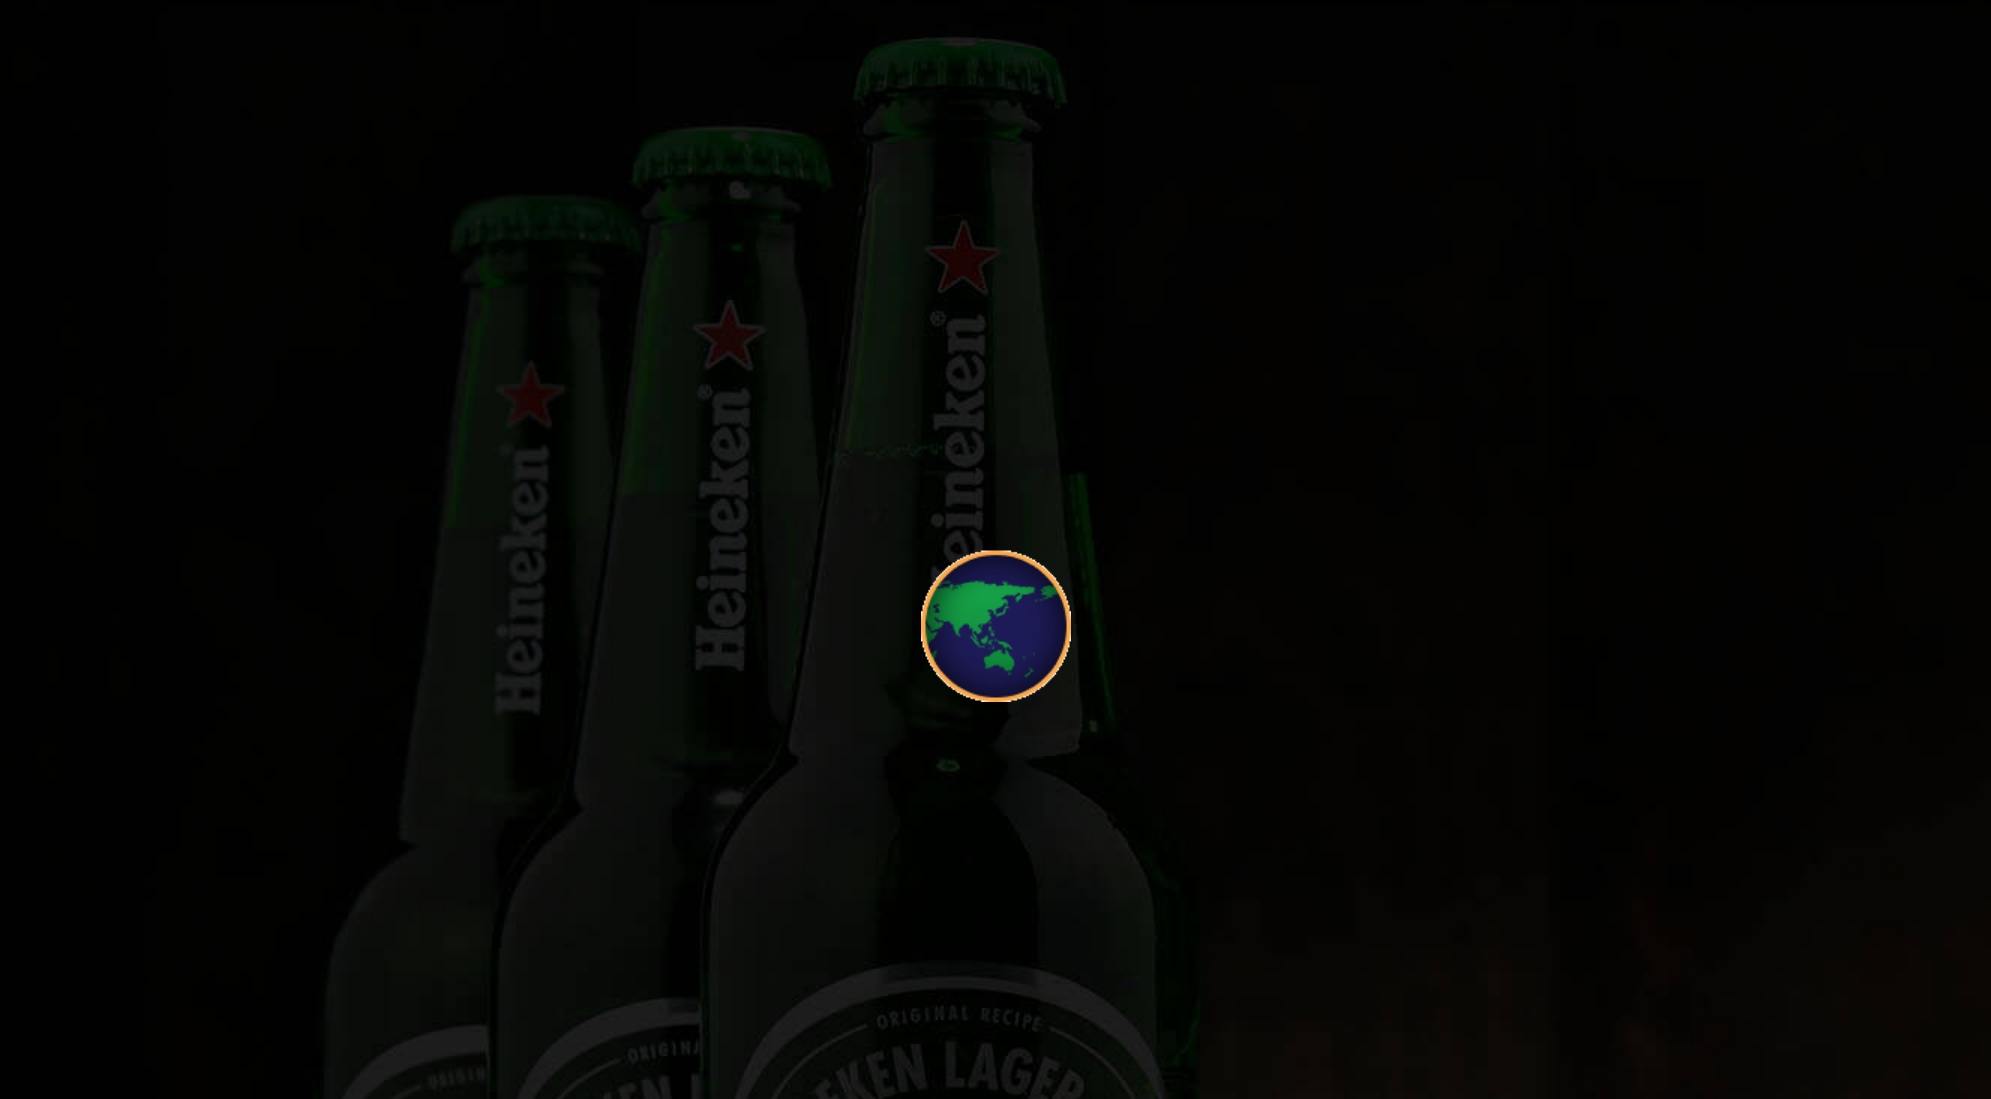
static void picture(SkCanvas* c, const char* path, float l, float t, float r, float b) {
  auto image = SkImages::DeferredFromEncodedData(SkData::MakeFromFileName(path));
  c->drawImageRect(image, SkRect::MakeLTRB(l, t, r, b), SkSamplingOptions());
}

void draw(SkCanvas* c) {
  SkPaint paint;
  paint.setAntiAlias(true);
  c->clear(0xffffffff);
  picture(c, "img_01.png", 0, 0, 1991, 1099);
  picture(c, "img_02.png", 921, 550, 1071, 702);
}
